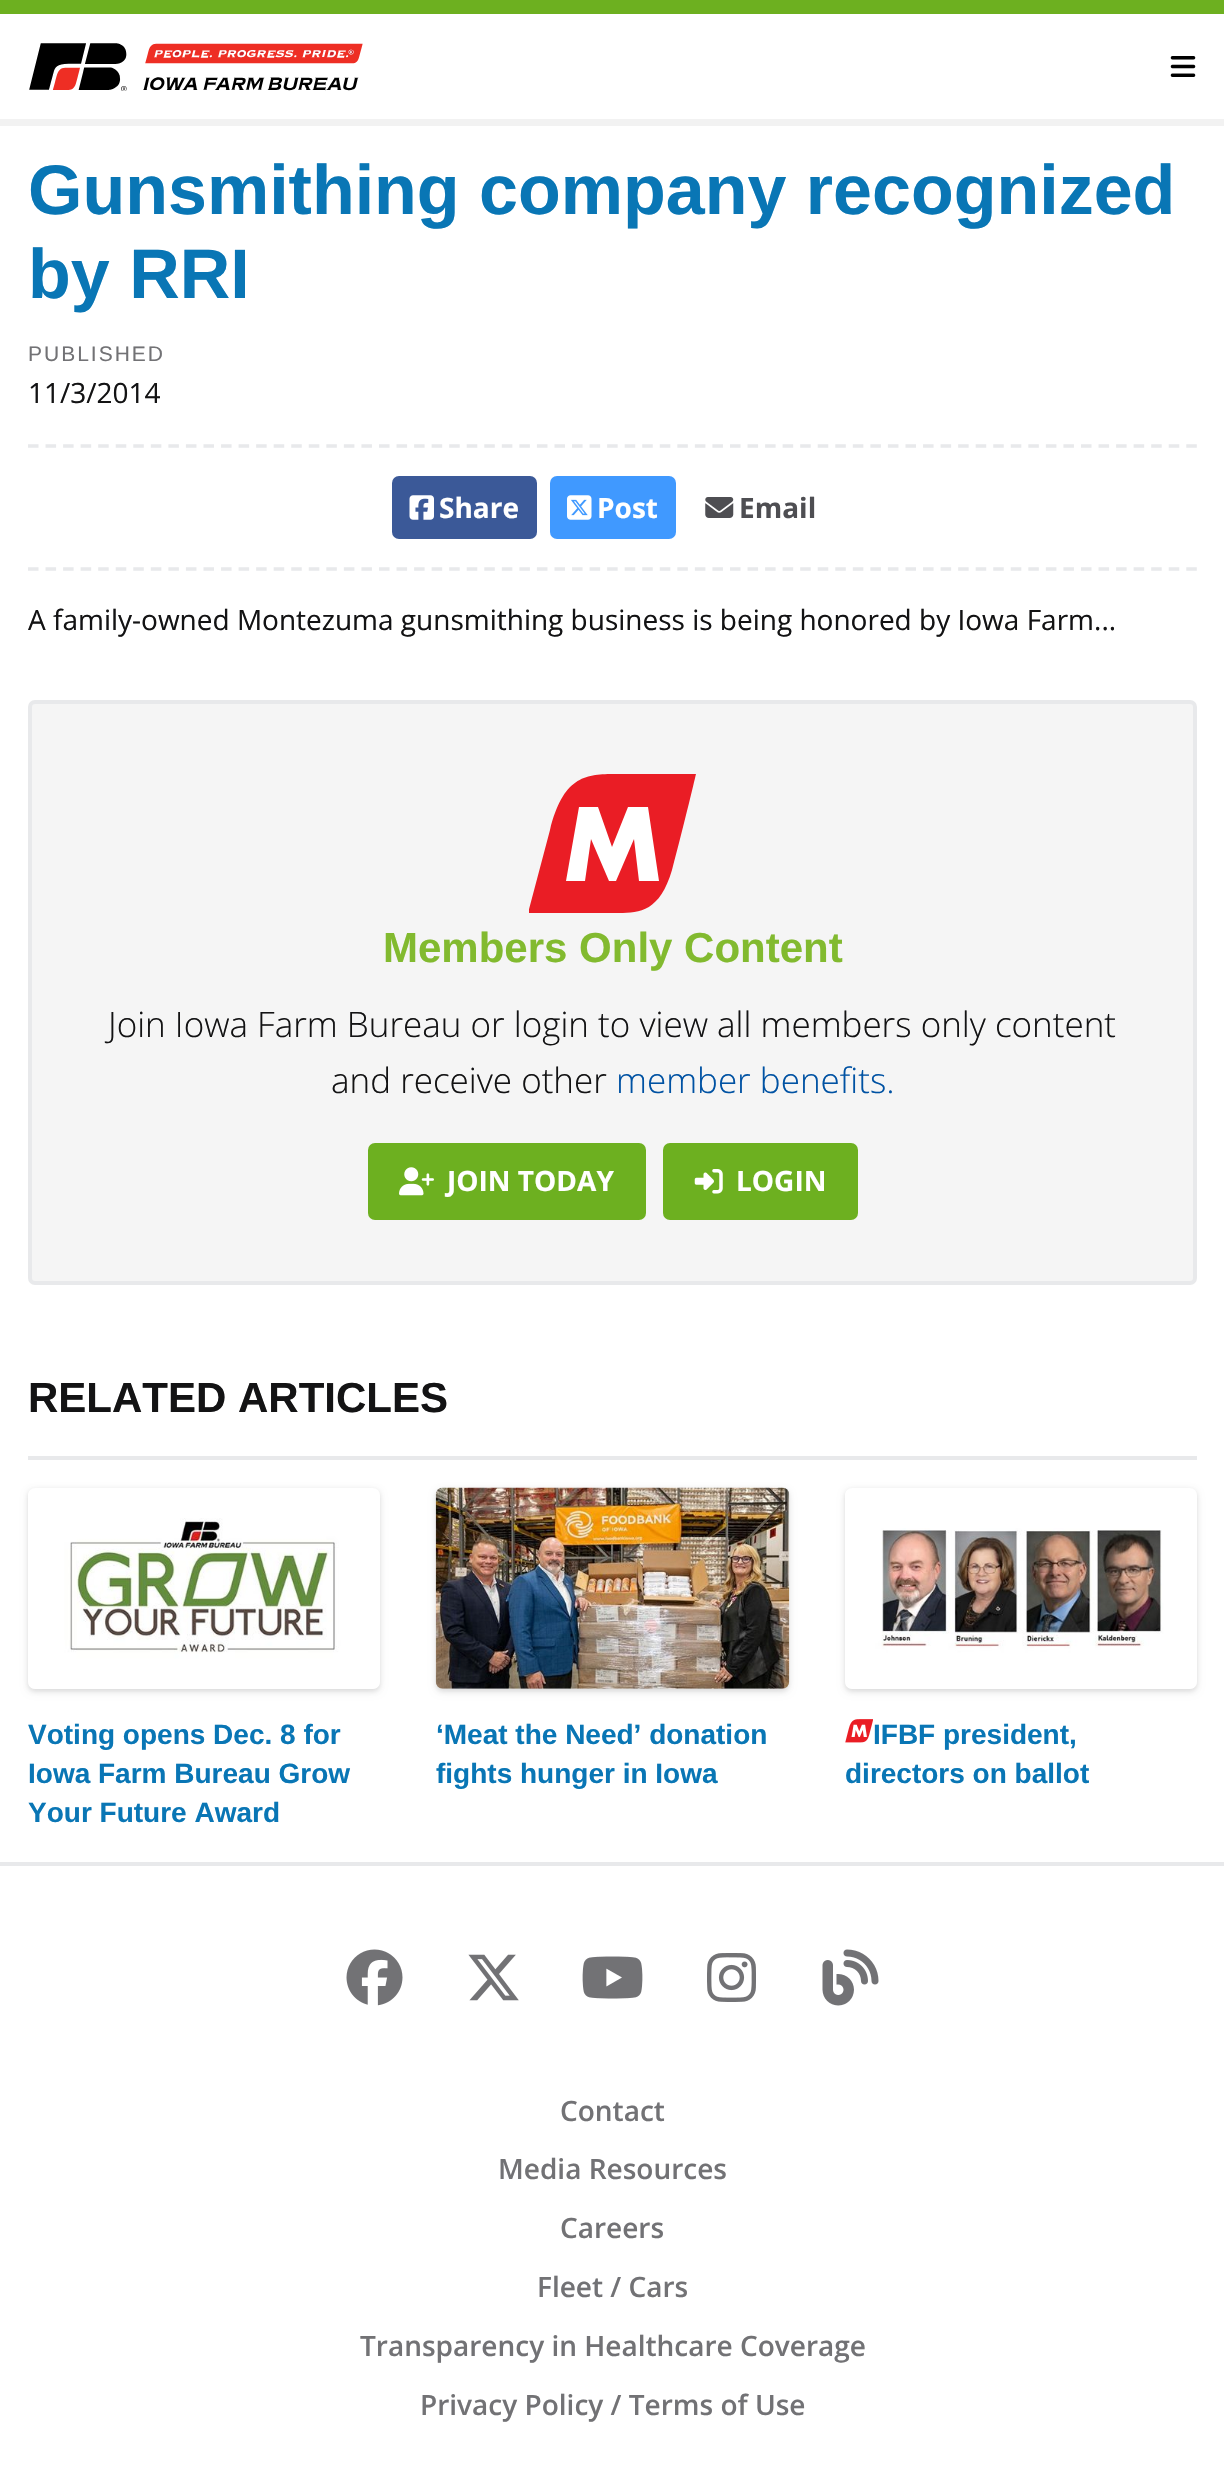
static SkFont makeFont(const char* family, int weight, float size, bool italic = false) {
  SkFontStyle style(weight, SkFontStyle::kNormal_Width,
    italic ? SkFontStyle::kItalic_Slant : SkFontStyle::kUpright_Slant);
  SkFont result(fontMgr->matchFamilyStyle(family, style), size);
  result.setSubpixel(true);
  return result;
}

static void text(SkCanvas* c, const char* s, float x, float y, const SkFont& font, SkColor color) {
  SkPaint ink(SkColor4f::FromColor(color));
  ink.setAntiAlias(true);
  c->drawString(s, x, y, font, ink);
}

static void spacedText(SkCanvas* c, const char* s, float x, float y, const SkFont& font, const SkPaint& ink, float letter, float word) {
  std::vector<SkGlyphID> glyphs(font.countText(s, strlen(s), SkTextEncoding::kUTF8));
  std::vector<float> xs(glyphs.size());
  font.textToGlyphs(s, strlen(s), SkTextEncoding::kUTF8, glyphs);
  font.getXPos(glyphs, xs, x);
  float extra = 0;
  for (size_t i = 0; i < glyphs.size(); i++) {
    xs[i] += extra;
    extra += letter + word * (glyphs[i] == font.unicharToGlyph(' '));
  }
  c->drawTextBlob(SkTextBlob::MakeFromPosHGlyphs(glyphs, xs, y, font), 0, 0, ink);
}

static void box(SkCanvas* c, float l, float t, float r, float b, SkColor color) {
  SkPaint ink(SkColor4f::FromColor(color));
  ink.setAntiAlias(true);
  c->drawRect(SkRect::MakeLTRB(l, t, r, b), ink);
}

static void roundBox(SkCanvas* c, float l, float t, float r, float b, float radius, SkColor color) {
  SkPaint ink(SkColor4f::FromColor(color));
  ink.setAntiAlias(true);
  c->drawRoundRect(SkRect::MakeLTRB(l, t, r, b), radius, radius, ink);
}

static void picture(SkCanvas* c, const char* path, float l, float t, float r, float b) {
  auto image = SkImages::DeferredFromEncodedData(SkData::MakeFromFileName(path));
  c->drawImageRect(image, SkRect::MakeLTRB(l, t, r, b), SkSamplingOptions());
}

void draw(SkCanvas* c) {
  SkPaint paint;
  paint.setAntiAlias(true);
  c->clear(0xffffffff);
  box(c, 0, 119, 1224, 126, 0xfff2f2f2);
  box(c, 0, 0, 1224, 14, 0xff6db020);
  picture(c, "img_01.png", 29, 43, 363, 91);
  picture(c, "img_02.png", 1170, 56, 1196, 77);
  SkFont face1 = makeFont("Liberation Sans", 700, 70);
  text(c, "Gunsmithing company recognized", 28, 214, face1, 0xff0976b5);
  text(c, "by RRI", 28, 298, face1, 0xff0976b5);
  SkFont face2 = makeFont("Liberation Sans", 400, 21);
  paint.setColor(0xff727275);
  spacedText(c, "PUBLISHED", 28, 361, face2, paint, 2, 0);
  SkFont face3 = makeFont("Open Sans", 400, 28);
  text(c, "11/3/2014", 28, 403, face3, 0xff131314);
  paint.setStyle(SkPaint::kStroke_Style);
  paint.setStrokeWidth(3.5f);
  paint.setColor(0xffe8e9eb);
  paint.setPathEffect(SkDashPathEffect::Make({{10.5f, 7.05f}}, 0));
  c->drawPath(SkPathBuilder().moveTo(28, 446).lineTo(1197, 446).detach(), paint);
  paint.setPathEffect(nullptr);
  paint.setPathEffect(SkDashPathEffect::Make({{10.5f, 7.05f}}, 0));
  c->drawPath(SkPathBuilder().moveTo(28, 569).lineTo(1197, 569).detach(), paint);
  paint.setPathEffect(nullptr);
  roundBox(c, 392, 476, 537, 539, 7, 0xff3b5998);
  picture(c, "img_03.png", 409, 495, 434, 520);
  SkFont face4 = makeFont("Open Sans", 700, 28);
  text(c, "Share", 439, 518, face4, 0xffffffff);
  roundBox(c, 550, 476, 676, 539, 7, 0xff4099ff);
  picture(c, "img_04.png", 567, 495, 592, 520);
  text(c, "Post", 597, 518, face4, 0xffffffff);
  picture(c, "img_05.png", 705, 497, 734, 518);
  text(c, "Email", 739, 518, face4, 0xff4e4e52);
  text(c, "A family-owned Montezuma gunsmithing business is being honored by Iowa Farm...", 28, 630, face3, 0xff131314);
  paint.setStyle(SkPaint::kFill_Style);
  paint.setColor(0xfff5f5f5);
  c->drawRoundRect(SkRect::MakeLTRB(30, 702, 1195, 1283), 5, 5, paint);
  paint.setStyle(SkPaint::kStroke_Style);
  paint.setStrokeWidth(4);
  paint.setColor(0xffe8e9eb);
  c->drawRoundRect(SkRect::MakeLTRB(30, 702, 1195, 1283), 5, 5, paint);
  box(c, 566, 807, 659, 881, 0xffffffff);
  c->save();
  c->clipRect(SkRect::MakeLTRB(529, 760, 697, 928));
  paint.setStyle(SkPaint::kFill_Style);
  paint.setColor(0xffea1d25);
  c->drawPath(SkPathBuilder().moveTo(627, 774).cubicTo(592, 774, 565, 769, 550, 830).lineTo(528, 913).lineTo(619, 913).cubicTo(640, 913, 660, 911, 672, 870).cubicTo(685, 821, 696, 774, 696, 774).close().moveTo(639, 881).lineTo(634, 839).lineTo(616, 881).lineTo(609, 881).lineTo(591, 839).lineTo(585, 881).lineTo(566, 881).lineTo(579, 807).lineTo(598, 807).lineTo(612, 847).lineTo(628, 807).lineTo(648, 807).lineTo(659, 881).close().detach(), paint);
  c->restore();
  SkFont face5 = makeFont("Liberation Sans", 700, 42);
  text(c, "Members Only Content", 383, 962, face5, 0xff82ba2f);
  SkFont face6 = makeFont("Open Sans", 300, 35);
  text(c, "Join Iowa Farm Bureau or login to view all members only content", 108, 1037, face6, 0xff131314);
  text(c, "and receive other", 331, 1093, face6, 0xff131314);
  text(c, "member benefits.", 616, 1093, face6, 0xff0052a3);
  roundBox(c, 368, 1143, 646, 1220, 7, 0xff6db020);
  picture(c, "img_06.png", 399, 1167, 434, 1196);
  text(c, "JOIN TODAY", 447, 1191, face4, 0xffffffff);
  roundBox(c, 663, 1143, 858, 1220, 7, 0xff6db020);
  picture(c, "img_07.png", 694, 1169, 723, 1194);
  text(c, "LOGIN", 736, 1191, face4, 0xffffffff);
  box(c, 28, 1456, 1197, 1460, 0xffe8e9eb);
  text(c, "RELATED ARTICLES", 28, 1412, face5, 0xff131314);
  c->save();
  c->clipPath(SkPathBuilder(SkPathFillType::kEvenOdd).moveTo(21, 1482).lineTo(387, 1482).lineTo(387, 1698).lineTo(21, 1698).close().moveTo(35, 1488).lineTo(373, 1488).cubicTo(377, 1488, 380, 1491, 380, 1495).lineTo(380, 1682).cubicTo(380, 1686, 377, 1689, 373, 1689).lineTo(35, 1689).cubicTo(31, 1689, 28, 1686, 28, 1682).lineTo(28, 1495).cubicTo(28, 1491, 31, 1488, 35, 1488).close().detach(), true);
  paint.setColor(0x14000000);
  paint.setMaskFilter(SkMaskFilter::MakeBlur(kNormal_SkBlurStyle, 2));
  c->drawRoundRect(SkRect::MakeLTRB(28, 1489, 380, 1691), 7, 7, paint);
  paint.setMaskFilter(nullptr);
  c->restore();
  c->save();
  c->clipPath(SkPathBuilder(SkPathFillType::kEvenOdd).moveTo(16, 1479).lineTo(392, 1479).lineTo(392, 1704).lineTo(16, 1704).close().moveTo(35, 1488).lineTo(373, 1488).cubicTo(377, 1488, 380, 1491, 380, 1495).lineTo(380, 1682).cubicTo(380, 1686, 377, 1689, 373, 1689).lineTo(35, 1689).cubicTo(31, 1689, 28, 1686, 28, 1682).lineTo(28, 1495).cubicTo(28, 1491, 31, 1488, 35, 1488).close().detach(), true);
  paint.setMaskFilter(SkMaskFilter::MakeBlur(kNormal_SkBlurStyle, 3.5f));
  c->drawRoundRect(SkRect::MakeLTRB(28, 1491, 380, 1692), 7, 7, paint);
  paint.setMaskFilter(nullptr);
  c->restore();
  picture(c, "img_08.png", 31, 1518, 379, 1689);
  SkFont face7 = makeFont("Liberation Sans", 700, 28);
  text(c, "Voting opens Dec. 8 for", 28, 1744, face7, 0xff0976b5);
  text(c, "Iowa Farm Bureau Grow", 28, 1783, face7, 0xff0976b5);
  text(c, "Your Future Award", 28, 1822, face7, 0xff0976b5);
  paint.setMaskFilter(SkMaskFilter::MakeBlur(kNormal_SkBlurStyle, 2));
  c->drawRoundRect(SkRect::MakeLTRB(436, 1489, 789, 1691), 7, 7, paint);
  paint.setMaskFilter(nullptr);
  paint.setMaskFilter(SkMaskFilter::MakeBlur(kNormal_SkBlurStyle, 3.5f));
  c->drawRoundRect(SkRect::MakeLTRB(436, 1491, 789, 1692), 7, 7, paint);
  paint.setMaskFilter(nullptr);
  picture(c, "img_09.png", 435, 1487, 790, 1689);
  text(c, "‘Meat the Need’ donation", 436, 1744, face7, 0xff0976b5);
  text(c, "fights hunger in Iowa", 436, 1783, face7, 0xff0976b5);
  c->save();
  c->clipPath(SkPathBuilder(SkPathFillType::kEvenOdd).moveTo(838, 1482).lineTo(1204, 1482).lineTo(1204, 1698).lineTo(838, 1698).close().moveTo(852, 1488).lineTo(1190, 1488).cubicTo(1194, 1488, 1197, 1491, 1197, 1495).lineTo(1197, 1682).cubicTo(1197, 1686, 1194, 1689, 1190, 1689).lineTo(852, 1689).cubicTo(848, 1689, 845, 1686, 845, 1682).lineTo(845, 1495).cubicTo(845, 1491, 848, 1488, 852, 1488).close().detach(), true);
  paint.setMaskFilter(SkMaskFilter::MakeBlur(kNormal_SkBlurStyle, 2));
  c->drawRoundRect(SkRect::MakeLTRB(845, 1489, 1197, 1691), 7, 7, paint);
  paint.setMaskFilter(nullptr);
  c->restore();
  c->save();
  c->clipPath(SkPathBuilder(SkPathFillType::kEvenOdd).moveTo(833, 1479).lineTo(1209, 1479).lineTo(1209, 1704).lineTo(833, 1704).close().moveTo(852, 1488).lineTo(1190, 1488).cubicTo(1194, 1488, 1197, 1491, 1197, 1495).lineTo(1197, 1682).cubicTo(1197, 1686, 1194, 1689, 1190, 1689).lineTo(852, 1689).cubicTo(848, 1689, 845, 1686, 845, 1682).lineTo(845, 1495).cubicTo(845, 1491, 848, 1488, 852, 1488).close().detach(), true);
  paint.setMaskFilter(SkMaskFilter::MakeBlur(kNormal_SkBlurStyle, 3.5f));
  c->drawRoundRect(SkRect::MakeLTRB(845, 1491, 1197, 1692), 7, 7, paint);
  paint.setMaskFilter(nullptr);
  c->restore();
  picture(c, "img_10.png", 846, 1528, 1194, 1689);
  picture(c, "img_11.png", 845, 1719, 873, 1743);
  text(c, "IFBF president,", 873, 1744, face7, 0xff0976b5);
  text(c, "directors on ballot", 845, 1783, face7, 0xff0976b5);
  box(c, 0, 1862, 1224, 1866, 0xffe8e9eb);
  picture(c, "img_12.png", 346, 1949, 403, 2006);
  picture(c, "img_13.png", 468, 1954, 519, 2001);
  picture(c, "img_14.png", 582, 1956, 643, 1999);
  picture(c, "img_15.png", 707, 1953, 756, 2002);
  picture(c, "img_16.png", 822, 1949, 879, 2006);
  SkFont face8 = makeFont("Open Sans", 600, 28);
  text(c, "Contact", 560, 2121, face8, 0xff727275);
  text(c, "Media Resources", 498, 2179, face8, 0xff727275);
  text(c, "Careers", 560, 2238, face8, 0xff727275);
  text(c, "Fleet / Cars", 537, 2297, face8, 0xff727275);
  text(c, "Transparency in Healthcare Coverage", 360, 2356, face8, 0xff727275);
  text(c, "Privacy Policy / Terms of Use", 420, 2415, face8, 0xff727275);
}
